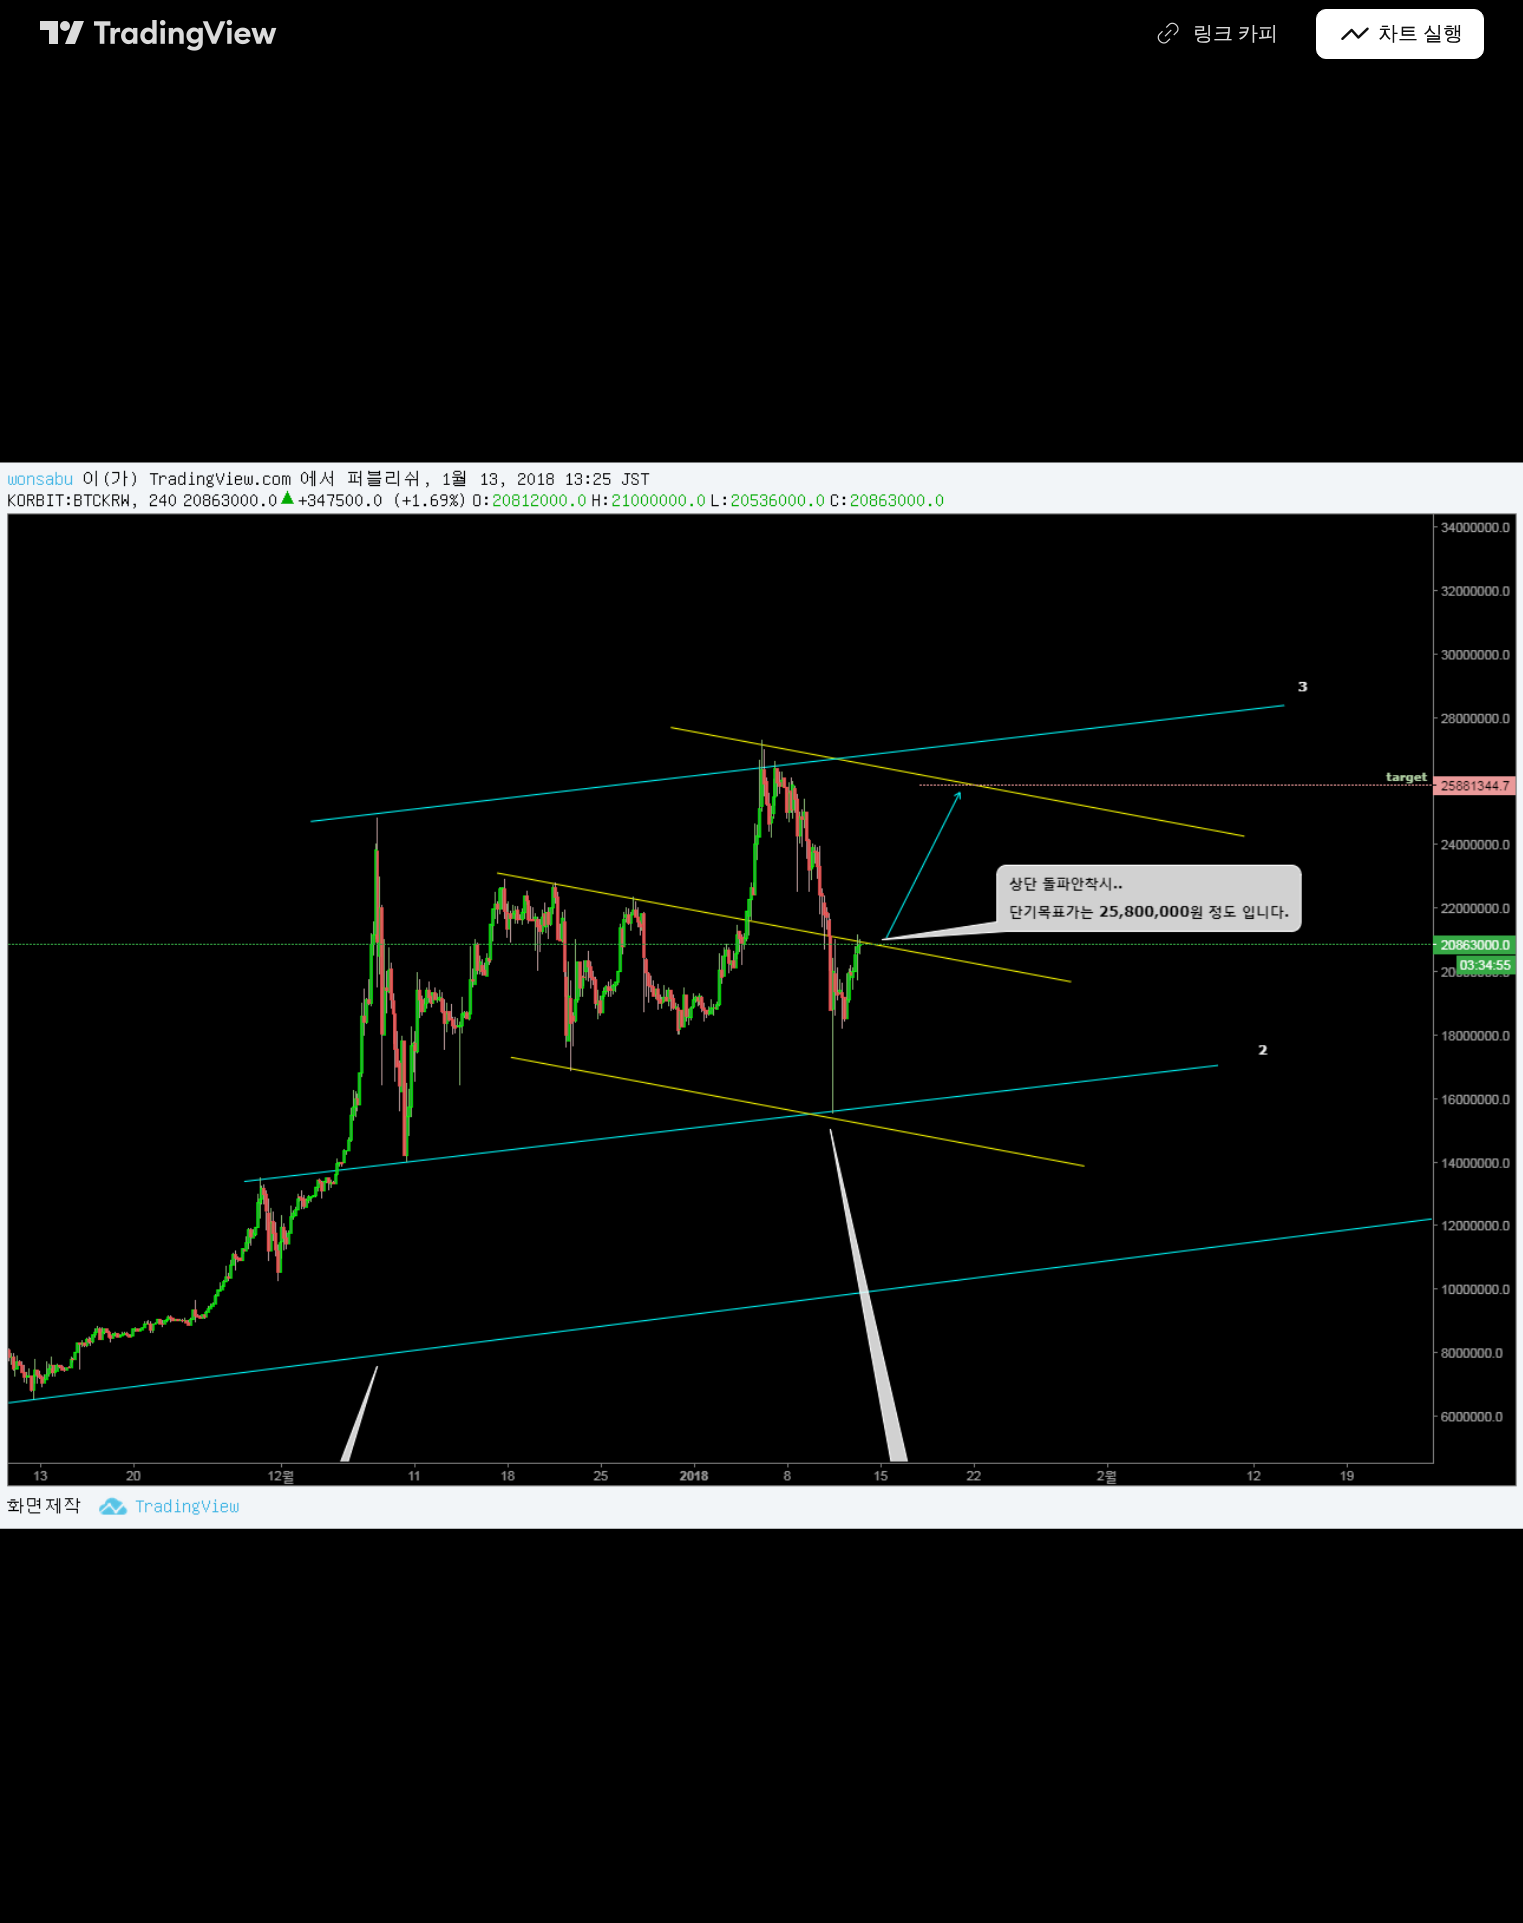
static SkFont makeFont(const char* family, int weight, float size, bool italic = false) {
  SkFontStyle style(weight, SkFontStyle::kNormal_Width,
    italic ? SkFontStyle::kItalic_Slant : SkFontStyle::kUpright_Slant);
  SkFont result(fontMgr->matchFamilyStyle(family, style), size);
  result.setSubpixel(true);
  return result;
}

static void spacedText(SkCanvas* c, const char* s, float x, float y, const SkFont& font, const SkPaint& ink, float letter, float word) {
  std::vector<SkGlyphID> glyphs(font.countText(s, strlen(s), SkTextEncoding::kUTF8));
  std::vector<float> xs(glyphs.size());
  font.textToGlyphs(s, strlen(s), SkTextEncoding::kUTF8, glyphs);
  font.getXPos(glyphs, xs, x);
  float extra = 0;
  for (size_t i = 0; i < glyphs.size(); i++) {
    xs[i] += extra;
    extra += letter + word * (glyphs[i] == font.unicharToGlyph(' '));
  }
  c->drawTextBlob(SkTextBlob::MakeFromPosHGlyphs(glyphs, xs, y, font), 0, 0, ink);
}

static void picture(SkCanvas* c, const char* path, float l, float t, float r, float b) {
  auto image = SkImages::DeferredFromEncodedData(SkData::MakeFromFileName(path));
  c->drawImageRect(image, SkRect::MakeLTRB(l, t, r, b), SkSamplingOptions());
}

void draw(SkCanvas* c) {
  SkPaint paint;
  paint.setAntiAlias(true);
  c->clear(0xff000000);
  paint.setColor(0xffdbdbdb);
  c->drawPath(SkPathBuilder().moveTo(58, 44).lineTo(49, 44).lineTo(49, 30).lineTo(40, 30).lineTo(40, 21).lineTo(58, 21).close().moveTo(75, 44).lineTo(65, 44).lineTo(74, 21).lineTo(84, 21).close().detach(), paint);
  c->drawCircle(65, 26, 5, paint);
  picture(c, "img_01.png", 94, 19, 277, 51);
  picture(c, "img_02.png", 1157, 22, 1179, 44);
  SkFont face1 = makeFont("WenQuanYi Zen Hei", 500, 20);
  spacedText(c, "링크 카피", 1193, 40, face1, paint, 0, -1);
  paint.setColor(0xffffffff);
  c->drawRoundRect(SkRect::MakeLTRB(1316.5f, 9.5f, 1483.5f, 58.5f), 9.5f, 9.5f, paint);
  paint.setStyle(SkPaint::kStroke_Style);
  paint.setStrokeWidth(1);
  c->drawRoundRect(SkRect::MakeLTRB(1316.5f, 9.5f, 1483.5f, 58.5f), 9.5f, 9.5f, paint);
  picture(c, "img_03.png", 1341, 27, 1369, 40);
  paint.setStyle(SkPaint::kFill_Style);
  paint.setColor(0xff0f0f0f);
  spacedText(c, "차트 실행", 1378, 40, face1, paint, 0, -1);
  picture(c, "img_04.png", 0, 462, 1523, 1529);
}
